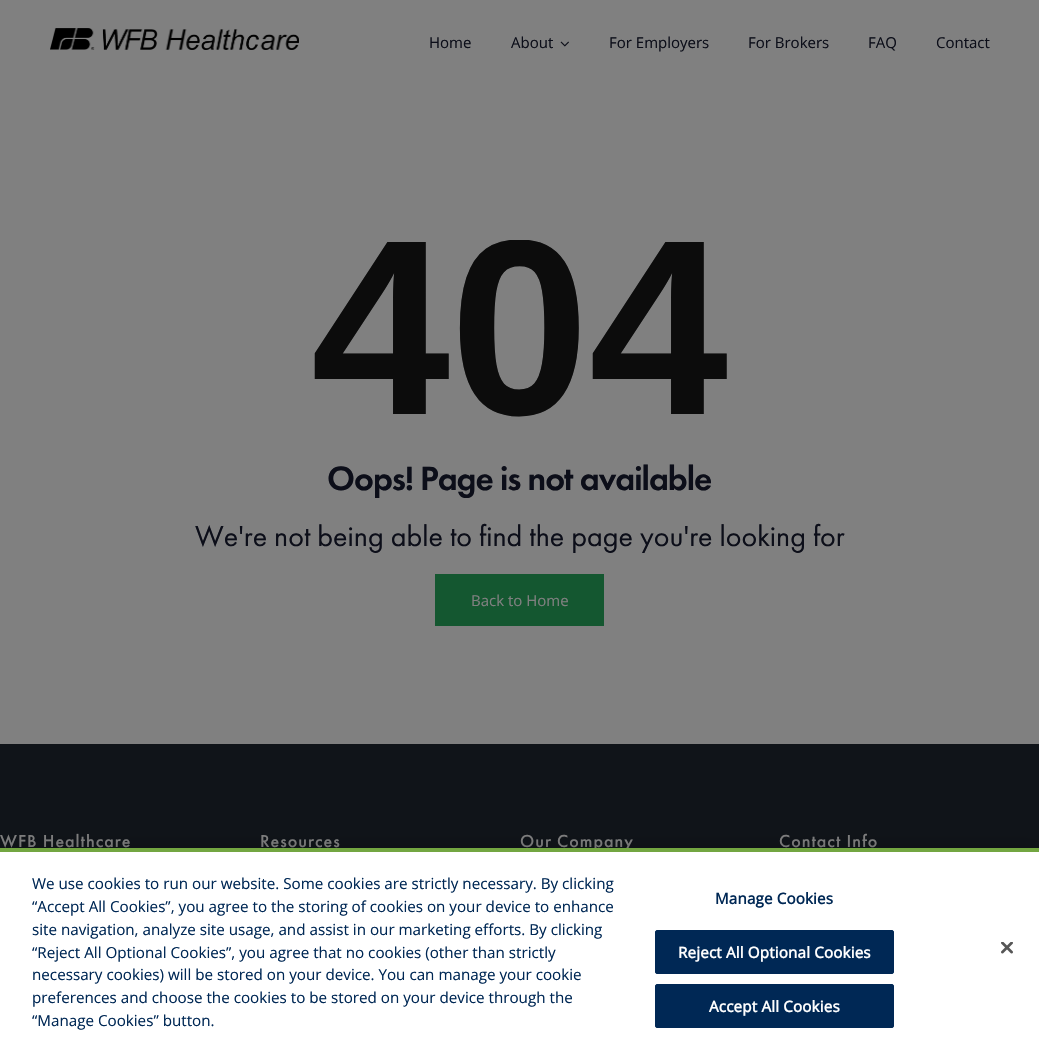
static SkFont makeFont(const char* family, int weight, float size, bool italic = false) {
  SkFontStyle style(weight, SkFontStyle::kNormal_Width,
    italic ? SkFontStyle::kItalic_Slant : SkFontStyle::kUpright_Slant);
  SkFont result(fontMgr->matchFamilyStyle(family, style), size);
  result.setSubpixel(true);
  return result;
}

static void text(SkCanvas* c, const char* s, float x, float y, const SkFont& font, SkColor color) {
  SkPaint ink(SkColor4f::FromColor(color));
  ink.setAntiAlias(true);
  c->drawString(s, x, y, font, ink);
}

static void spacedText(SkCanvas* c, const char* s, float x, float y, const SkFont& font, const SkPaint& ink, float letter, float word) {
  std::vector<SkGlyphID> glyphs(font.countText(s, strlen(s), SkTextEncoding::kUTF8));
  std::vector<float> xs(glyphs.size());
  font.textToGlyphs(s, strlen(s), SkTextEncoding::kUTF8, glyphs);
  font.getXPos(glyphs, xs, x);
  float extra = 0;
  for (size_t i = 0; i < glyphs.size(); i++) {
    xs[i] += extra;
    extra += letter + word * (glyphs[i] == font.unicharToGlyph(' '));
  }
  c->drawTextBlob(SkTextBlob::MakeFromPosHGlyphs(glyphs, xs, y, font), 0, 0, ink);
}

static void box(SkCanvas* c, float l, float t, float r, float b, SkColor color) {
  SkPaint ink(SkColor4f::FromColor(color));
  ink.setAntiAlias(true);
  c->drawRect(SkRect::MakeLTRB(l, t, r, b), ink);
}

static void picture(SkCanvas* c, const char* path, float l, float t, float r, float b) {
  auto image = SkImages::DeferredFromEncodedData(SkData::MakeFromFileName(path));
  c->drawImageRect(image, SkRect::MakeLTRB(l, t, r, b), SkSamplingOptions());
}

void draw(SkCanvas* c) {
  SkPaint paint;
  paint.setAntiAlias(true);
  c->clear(0xff808080);
  picture(c, "img_01.png", 50, 28, 299, 50);
  SkFont face1 = makeFont("Open Sans", 400, 15);
  text(c, "Home", 429, 48, face1, 0xff0c0e19);
  text(c, "About", 511, 48, face1, 0xff0c0e19);
  picture(c, "img_02.png", 560, 41, 569, 47);
  text(c, "For Employers", 609, 48, face1, 0xff0c0e19);
  text(c, "For Brokers", 748, 48, face1, 0xff0c0e19);
  text(c, "FAQ", 868, 48, face1, 0xff0c0e19);
  text(c, "Contact", 936, 48, face1, 0xff0c0e19);
  SkFont face2 = makeFont("Liberation Sans", 700, 250);
  text(c, "4", 311, 414, face2, 0xff0c0c0c);
  c->save();
  c->clipRect(SkRect::MakeLTRB(450, 240, 589, 436));
  text(c, "0", 450, 414, face2, 0xff0c0c0c);
  c->restore();
  text(c, "4", 589, 414, face2, 0xff0c0c0c);
  SkFont face3 = makeFont("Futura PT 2", 500, 35);
  paint.setColor(0xff0c0e19);
  spacedText(c, "Oops! Page is not available", 327, 490, face3, paint, -1, 0);
  SkFont face4 = makeFont("Futura PT", 400, 30);
  text(c, "We're not being able to find the page you're looking for", 195, 546, face4, 0xff0c0e19);
  box(c, 435, 574, 604, 626, 0xff145730);
  text(c, "Back to Home", 471, 606, face1, 0xff808080);
  box(c, 0, 744, 1039, 848, 0xff101419);
  SkFont face5 = makeFont("Futura PT", 500, 18);
  paint.setColor(0xff808080);
  spacedText(c, "WFB Healthcare", 0, 847, face5, paint, 1, 0);
  spacedText(c, "Resources", 260, 847, face5, paint, 1, 0);
  spacedText(c, "Our Company", 520, 847, face5, paint, 1, 0);
  spacedText(c, "Contact Info", 779, 847, face5, paint, 1, 0);
  paint.setColor(0x33000000);
  paint.setMaskFilter(SkMaskFilter::MakeBlur(kNormal_SkBlurStyle, 9));
  c->drawRect(SkRect::MakeLTRB(0, 848, 1039, 1048), paint);
  paint.setMaskFilter(nullptr);
  box(c, 0, 852, 1039, 1048, 0xffffffff);
  box(c, 0, 848, 1039, 852, 0xff73a641);
  SkFont face6 = makeFont("Open Sans", 400, 15.2f);
  text(c, "We use cookies to run our website. Some cookies are strictly necessary. By clicking", 32, 889, face6, 0xff002855);
  text(c, "“Accept All Cookies”, you agree to the storing of cookies on your device to enhance", 32, 912, face6, 0xff002855);
  text(c, "site navigation, analyze site usage, and assist in our marketing efforts. By clicking", 32, 935, face6, 0xff002855);
  text(c, "“Reject All Optional Cookies”, you agree that no cookies (other than strictly", 32, 958, face6, 0xff002855);
  text(c, "necessary cookies) will be stored on your device. You can manage your cookie", 32, 980, face6, 0xff002855);
  text(c, "preferences and choose the cookies to be stored on your device through the", 32, 1003, face6, 0xff002855);
  text(c, "“Manage Cookies” button.", 32, 1026, face6, 0xff002855);
  SkFont face7 = makeFont("Open Sans", 700, 15.2f);
  paint.setColor(0xff002855);
  spacedText(c, "Manage Cookies", 715, 904, face7, paint, 0.15f, 0);
  c->drawRoundRect(SkRect::MakeLTRB(655.5f, 930.5f, 893.5f, 973.5f), 1.5f, 1.5f, paint);
  paint.setStyle(SkPaint::kStroke_Style);
  paint.setStrokeWidth(1);
  c->drawRoundRect(SkRect::MakeLTRB(655.5f, 930.5f, 893.5f, 973.5f), 1.5f, 1.5f, paint);
  paint.setStyle(SkPaint::kFill_Style);
  paint.setColor(0xffffffff);
  spacedText(c, "Reject All Optional Cookies", 678, 958, face7, paint, 0.15f, 0);
  paint.setColor(0xff002855);
  c->drawRoundRect(SkRect::MakeLTRB(655.5f, 984.5f, 893.5f, 1027.5f), 1.5f, 1.5f, paint);
  paint.setStyle(SkPaint::kStroke_Style);
  c->drawRoundRect(SkRect::MakeLTRB(655.5f, 984.5f, 893.5f, 1027.5f), 1.5f, 1.5f, paint);
  paint.setStyle(SkPaint::kFill_Style);
  paint.setColor(0xffffffff);
  spacedText(c, "Accept All Cookies", 709, 1012, face7, paint, 0.15f, 0);
  picture(c, "img_03.png", 1001, 942, 1013, 954);
}
